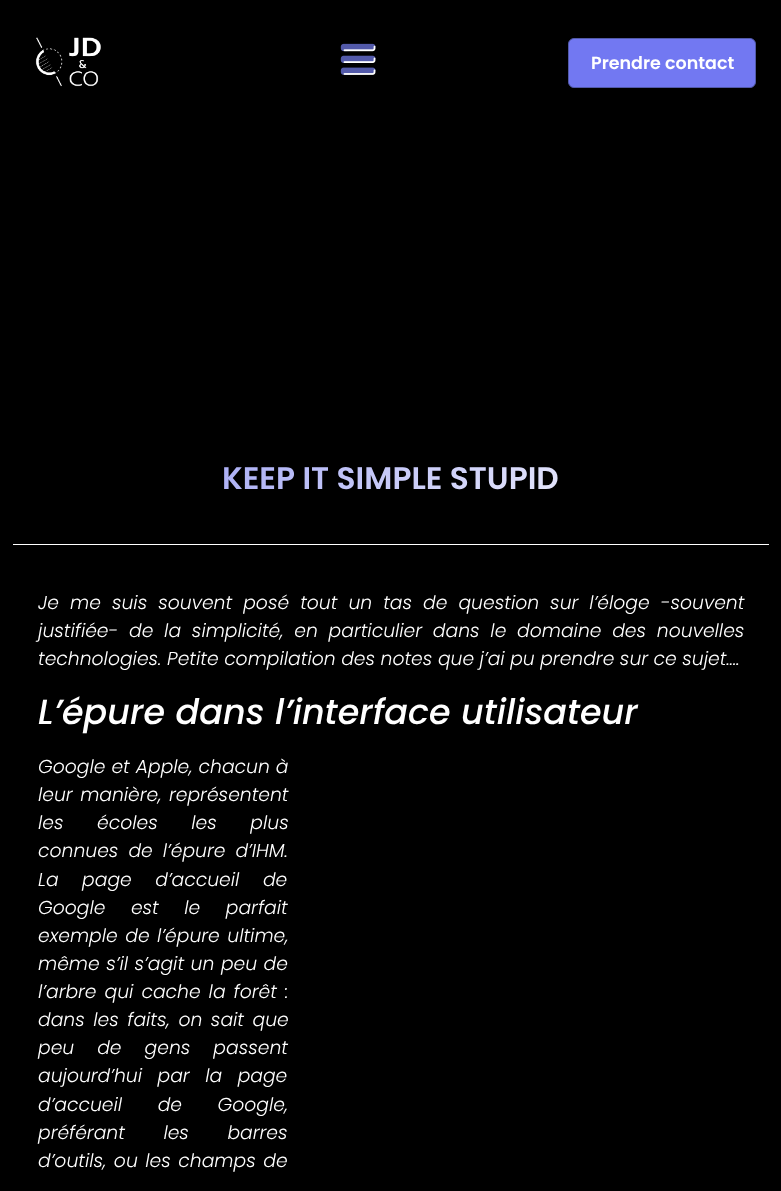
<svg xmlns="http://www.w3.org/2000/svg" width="781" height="1191">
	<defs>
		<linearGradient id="g1" gradientUnits="userSpaceOnUse" x1="240" y1="298" x2="542" y2="658"><stop offset="0" stop-color="#9095F2" /><stop offset="1" stop-color="#FFFFFF" /></linearGradient>
	</defs>
	<rect width="100%" height="100%" fill="#000000" />
	<image x="35" y="37" width="66" height="50" href="assets/img1.png" />
	<image x="340" y="43" width="36" height="32" href="assets/img2.png" />
	<rect x="568.5" y="38.5" width="187" height="49" rx="5.5" fill="#7278F2" stroke="#525AAA" />
	<text x="591" y="69" font-family="Poppins" font-size="17.5" font-weight="600" fill="#FFFFFF">Prendre contact</text>
	<text x="222" y="489" font-family="Poppins" font-size="31.25" font-weight="600" fill="url(#g1)">KEEP IT SIMPLE STUPID</text>
	<rect x="13" y="544" width="756" height="1" fill="#FFFFFF" />
	<g font-family="Poppins" font-size="18.75" font-weight="300" font-style="italic" fill="#FFFFFF">
		<text x="38" y="609" word-spacing="5.5">Je me suis souvent posé tout un tas de question sur l’éloge -souvent</text>
		<text x="38" y="637" word-spacing="5.25">justifiée- de la simplicité, en particulier dans le domaine des nouvelles</text>
		<text x="38" y="665">technologies. Petite compilation des notes que j’ai pu prendre sur ce sujet….</text>
	</g>
	<text x="38" y="724" font-family="Poppins" font-size="35" font-weight="500" font-style="italic" fill="#FFFFFF">L’épure dans l’interface utilisateur</text>
	<g font-family="Poppins" font-size="18.75" font-weight="300" font-style="italic" fill="#FFFFFF">
		<text x="38" y="773" word-spacing="0.5">Google et Apple, chacun à</text>
		<text x="38" y="801" word-spacing="2">leur manière, représentent</text>
		<text x="38" y="829" word-spacing="28">les écoles les plus</text>
		<text x="38" y="857" word-spacing="4.5">connues de l’épure d’IHM.</text>
		<text x="38" y="886" word-spacing="18">La page d’accueil de</text>
		<text x="38" y="914" word-spacing="20">Google est le parfait</text>
		<text x="38" y="942" word-spacing="2">exemple de l’épure ultime,</text>
		<text x="38" y="970" word-spacing="1">même s’il s’agit un peu de</text>
		<text x="38" y="998" word-spacing="2.5">l’arbre qui cache la forêt :</text>
		<text x="38" y="1026" word-spacing="3">dans les faits, on sait que</text>
		<text x="38" y="1054" word-spacing="17.5">peu de gens passent</text>
		<text x="38" y="1082" word-spacing="10">aujourd’hui par la page</text>
		<text x="38" y="1111" word-spacing="30">d’accueil de Google,</text>
		<text x="38" y="1139" word-spacing="33">préférant les barres</text>
		<text x="38" y="1167" word-spacing="2">d’outils, ou les champs de</text>
	</g>
</svg>
